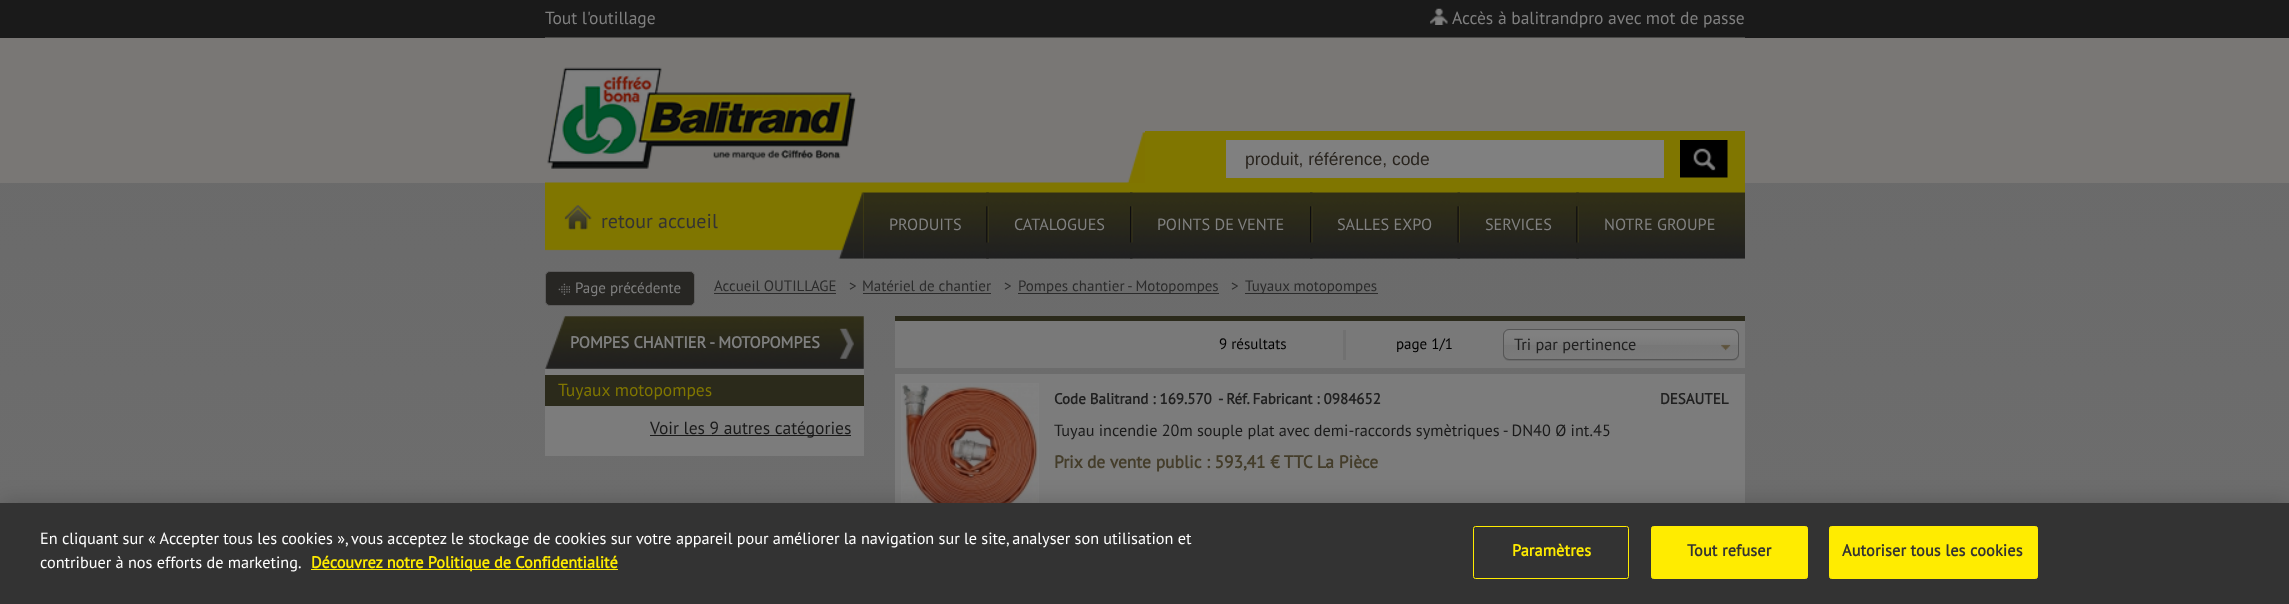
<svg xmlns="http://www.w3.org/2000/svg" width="2289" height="604">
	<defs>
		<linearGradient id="g1" gradientUnits="userSpaceOnUse" x1="1145" y1="0" x2="1145" y2="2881"><stop offset="0" stop-color="#696969" /><stop offset="1" stop-color="#808080" /></linearGradient>
		<linearGradient id="g2" gradientUnits="userSpaceOnUse" x1="1621" y1="330" x2="1621" y2="359"><stop offset="0.2" stop-color="#808080" /><stop offset="0.5" stop-color="#7B7B7B" /><stop offset="0.52" stop-color="#777777" /><stop offset="1" stop-color="#7A7A7A" /></linearGradient>
	</defs>
	<rect width="100%" height="100%" fill="#FFFFFF" />
	<rect x="0" y="183" width="2289" height="320" fill="url(#g1)" />
	<rect x="0" y="0" width="2289" height="38" fill="#1A1A1A" />
	<text x="545" y="24" font-family="PT Sans" font-size="17.5" fill="#808080">Tout l'outillage</text>
	<image x="1430" y="8" width="18" height="17" href="assets/img1.png" />
	<text x="1452" y="24" font-family="PT Sans" font-size="17.5" fill="#808080">Accès à balitrandpro avec mot de passe</text>
	<rect x="0" y="38" width="2289" height="145" fill="#797775" />
	<rect x="545" y="37" width="1200" height="1" fill="#494947" />
	<image x="547" y="67" width="309" height="102" href="assets/img2.png" />
	<image x="545" y="182" width="1200" height="69" href="assets/img5.png" />
	<image x="1127" y="132" width="18" height="51" href="assets/img3.png" />
	<rect x="1145" y="131" width="600" height="52" fill="#807600" />
	<rect x="1226" y="140" width="438" height="38" fill="#808080" />
	<text x="1245" y="165" font-family="Liberation Sans" font-size="17.5" fill="#29241E">produit, référence, code</text>
	<image x="1680" y="140" width="48" height="38" href="assets/img4.png" />
	<image x="564" y="205" width="28" height="25" href="assets/img6.png" />
	<text x="601" y="228" font-family="PT Sans" font-size="20" fill="#333333">retour accueil</text>
	<image x="838" y="192" width="26" height="67" href="assets/img7.png" />
	<image x="863" y="192" width="882" height="67" href="assets/img8.png" />
	<text x="889" y="230" font-family="PT Sans" font-size="16.25" fill="#808080">PRODUITS</text>
	<image x="986" y="192" width="3" height="67" href="assets/img9.png" />
	<text x="1014" y="230" font-family="PT Sans" font-size="16.25" fill="#808080">CATALOGUES</text>
	<image x="1130" y="192" width="3" height="67" href="assets/img10.png" />
	<text x="1157" y="230" font-family="PT Sans" font-size="16.25" fill="#808080">POINTS DE VENTE</text>
	<image x="1310" y="192" width="3" height="67" href="assets/img11.png" />
	<text x="1337" y="230" font-family="PT Sans" font-size="16.25" fill="#808080">SALLES EXPO</text>
	<image x="1457" y="192" width="3" height="67" href="assets/img12.png" />
	<text x="1485" y="230" font-family="PT Sans" font-size="16.25" fill="#808080">SERVICES</text>
	<image x="1576" y="192" width="3" height="67" href="assets/img13.png" />
	<text x="1604" y="230" font-family="PT Sans" font-size="16.25" fill="#808080">NOTRE GROUPE</text>
	<rect x="545.5" y="271.5" width="149" height="34" rx="4.5" fill="#272623" stroke="#5E5D5D" />
	<image x="558" y="283" width="12" height="12" href="assets/img14.png" />
	<text x="575" y="293" font-family="PT Sans" font-size="15" fill="#808080">Page précédente</text>
	<text x="714" y="291" font-family="PT Sans" font-size="15" fill="#2B2B2B">Accueil OUTILLAGE</text>
	<rect x="714" y="293" width="122" height="1" fill="#2B2B2B" />
	<g font-family="PT Sans" font-size="15" fill="#2B2B2B">
		<text x="849" y="291">&gt;</text>
		<text x="862" y="291">Matériel de chantier</text>
	</g>
	<rect x="863" y="293" width="128" height="1" fill="#2B2B2B" />
	<text x="1004" y="291" font-family="PT Sans" font-size="15" fill="#2B2B2B">&gt;</text>
	<rect x="1018" y="293" width="201" height="1" fill="#2B2B2B" />
	<g font-family="PT Sans" font-size="15" fill="#2B2B2B">
		<text x="1018" y="291">Pompes chantier - Motopompes</text>
		<text x="1231" y="291">&gt;</text>
	</g>
	<rect x="1245" y="293" width="133" height="1" fill="#2B2B2B" />
	<text x="1245" y="291" font-family="PT Sans" font-size="15" fill="#2B2B2B">Tuyaux motopompes</text>
	<image x="545" y="316" width="319" height="53" href="assets/img15.png" />
	<text x="570" y="348" font-family="PT Sans" font-size="16.25" font-weight="700" fill="#808080">POMPES CHANTIER - MOTOPOMPES</text>
	<rect x="545" y="369" width="319" height="87" fill="#7C7C7C" />
	<rect x="545" y="375" width="319" height="31" fill="#2B2A1B" />
	<text x="558" y="396" font-family="PT Sans" font-size="17.5" fill="#807600">Tuyaux motopompes</text>
	<rect x="650" y="435" width="201" height="1" fill="#1A1A1A" />
	<text x="650" y="434" font-family="PT Sans" font-size="17.5" fill="#1A1A1A">Voir les 9 autres catégories</text>
	<rect x="895" y="321" width="850" height="47" fill="#797979" />
	<rect x="895" y="316" width="850" height="5" fill="#2B2A1B" />
	<text x="1219" y="349" font-family="PT Sans" font-size="15" fill="#000000">9 résultats</text>
	<rect x="1343" y="330" width="3" height="30" fill="#717171" />
	<text x="1396" y="349" font-family="PT Sans" font-size="15" fill="#000000">page 1/1</text>
	<rect x="1503" y="330" width="236" height="31" rx="6" fill="#000000" fill-opacity="0.1" filter="blur(0.5px)" />
	<rect x="1504" y="330" width="234" height="29" rx="5" fill="url(#g2)" />
	<rect x="1503.5" y="329.5" width="235" height="30" rx="5.5" fill="none" stroke="#555555" />
	<text x="1514" y="350" font-family="PT Sans" font-size="16.25" fill="#202020">Tri par pertinence</text>
	<image x="1721" y="344" width="10" height="7" href="assets/img16.png" />
	<rect x="895" y="374" width="850" height="129" fill="#7C7C7C" />
	<rect x="901" y="383" width="138" height="120" fill="#808080" />
	<image x="902" y="384" width="136" height="119" href="assets/img17.png" />
	<g font-family="PT Sans" font-size="15" font-weight="700" fill="#202020">
		<text x="1054" y="404">Code Balitrand : 169.570</text>
		<text x="1218" y="404">- Réf. Fabricant : 0984652</text>
		<text x="1660" y="404">DESAUTEL</text>
	</g>
	<text x="1054" y="436" font-family="PT Sans" font-size="16.25" fill="#1A1A1A">Tuyau incendie 20m souple plat avec demi-raccords symètriques - DN40 Ø int.45</text>
	<text x="1054" y="468" font-family="PT Sans" font-size="17.5" font-weight="700" fill="#443D2A">Prix de vente public : 593,41 € TTC La Pièce</text>
	<rect x="0" y="503" width="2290" height="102" fill="#000000" fill-opacity="0.2" filter="blur(11px)" />
	<rect x="0" y="503" width="2289" height="101" fill="#333333" />
	<g font-family="PT Sans" font-size="16.25" fill="#FFFFFF">
		<text x="40" y="544">En cliquant sur « Accepter tous les cookies », vous acceptez le stockage de cookies sur votre appareil pour améliorer la navigation sur le site, analyser son utilisation et</text>
		<text x="40" y="568">contribuer à nos efforts de marketing.</text>
	</g>
	<rect x="311" y="569" width="307" height="1" fill="#FFEC00" />
	<text x="311" y="568" font-family="PT Sans" font-size="16.25" font-weight="700" fill="#FFEC00">Découvrez notre Politique de Confidentialité</text>
	<rect x="1473.5" y="526.5" width="155" height="52" rx="2" fill="none" stroke="#FFEC00" />
	<text x="1512" y="556" font-family="PT Sans" font-size="16.25" font-weight="700" letter-spacing="0.15" fill="#FFEC00">Paramètres</text>
	<rect x="1651.5" y="526.5" width="156" height="52" rx="2" fill="#FFEC00" stroke="#FFEC00" />
	<text x="1687" y="556" font-family="PT Sans" font-size="16.25" font-weight="700" letter-spacing="0.15" fill="#333333">Tout refuser</text>
	<rect x="1829.5" y="526.5" width="208" height="52" rx="2" fill="#FFEC00" stroke="#FFEC00" />
	<text x="1842" y="556" font-family="PT Sans" font-size="16.25" font-weight="700" letter-spacing="0.15" fill="#333333">Autoriser tous les cookies</text>
</svg>
